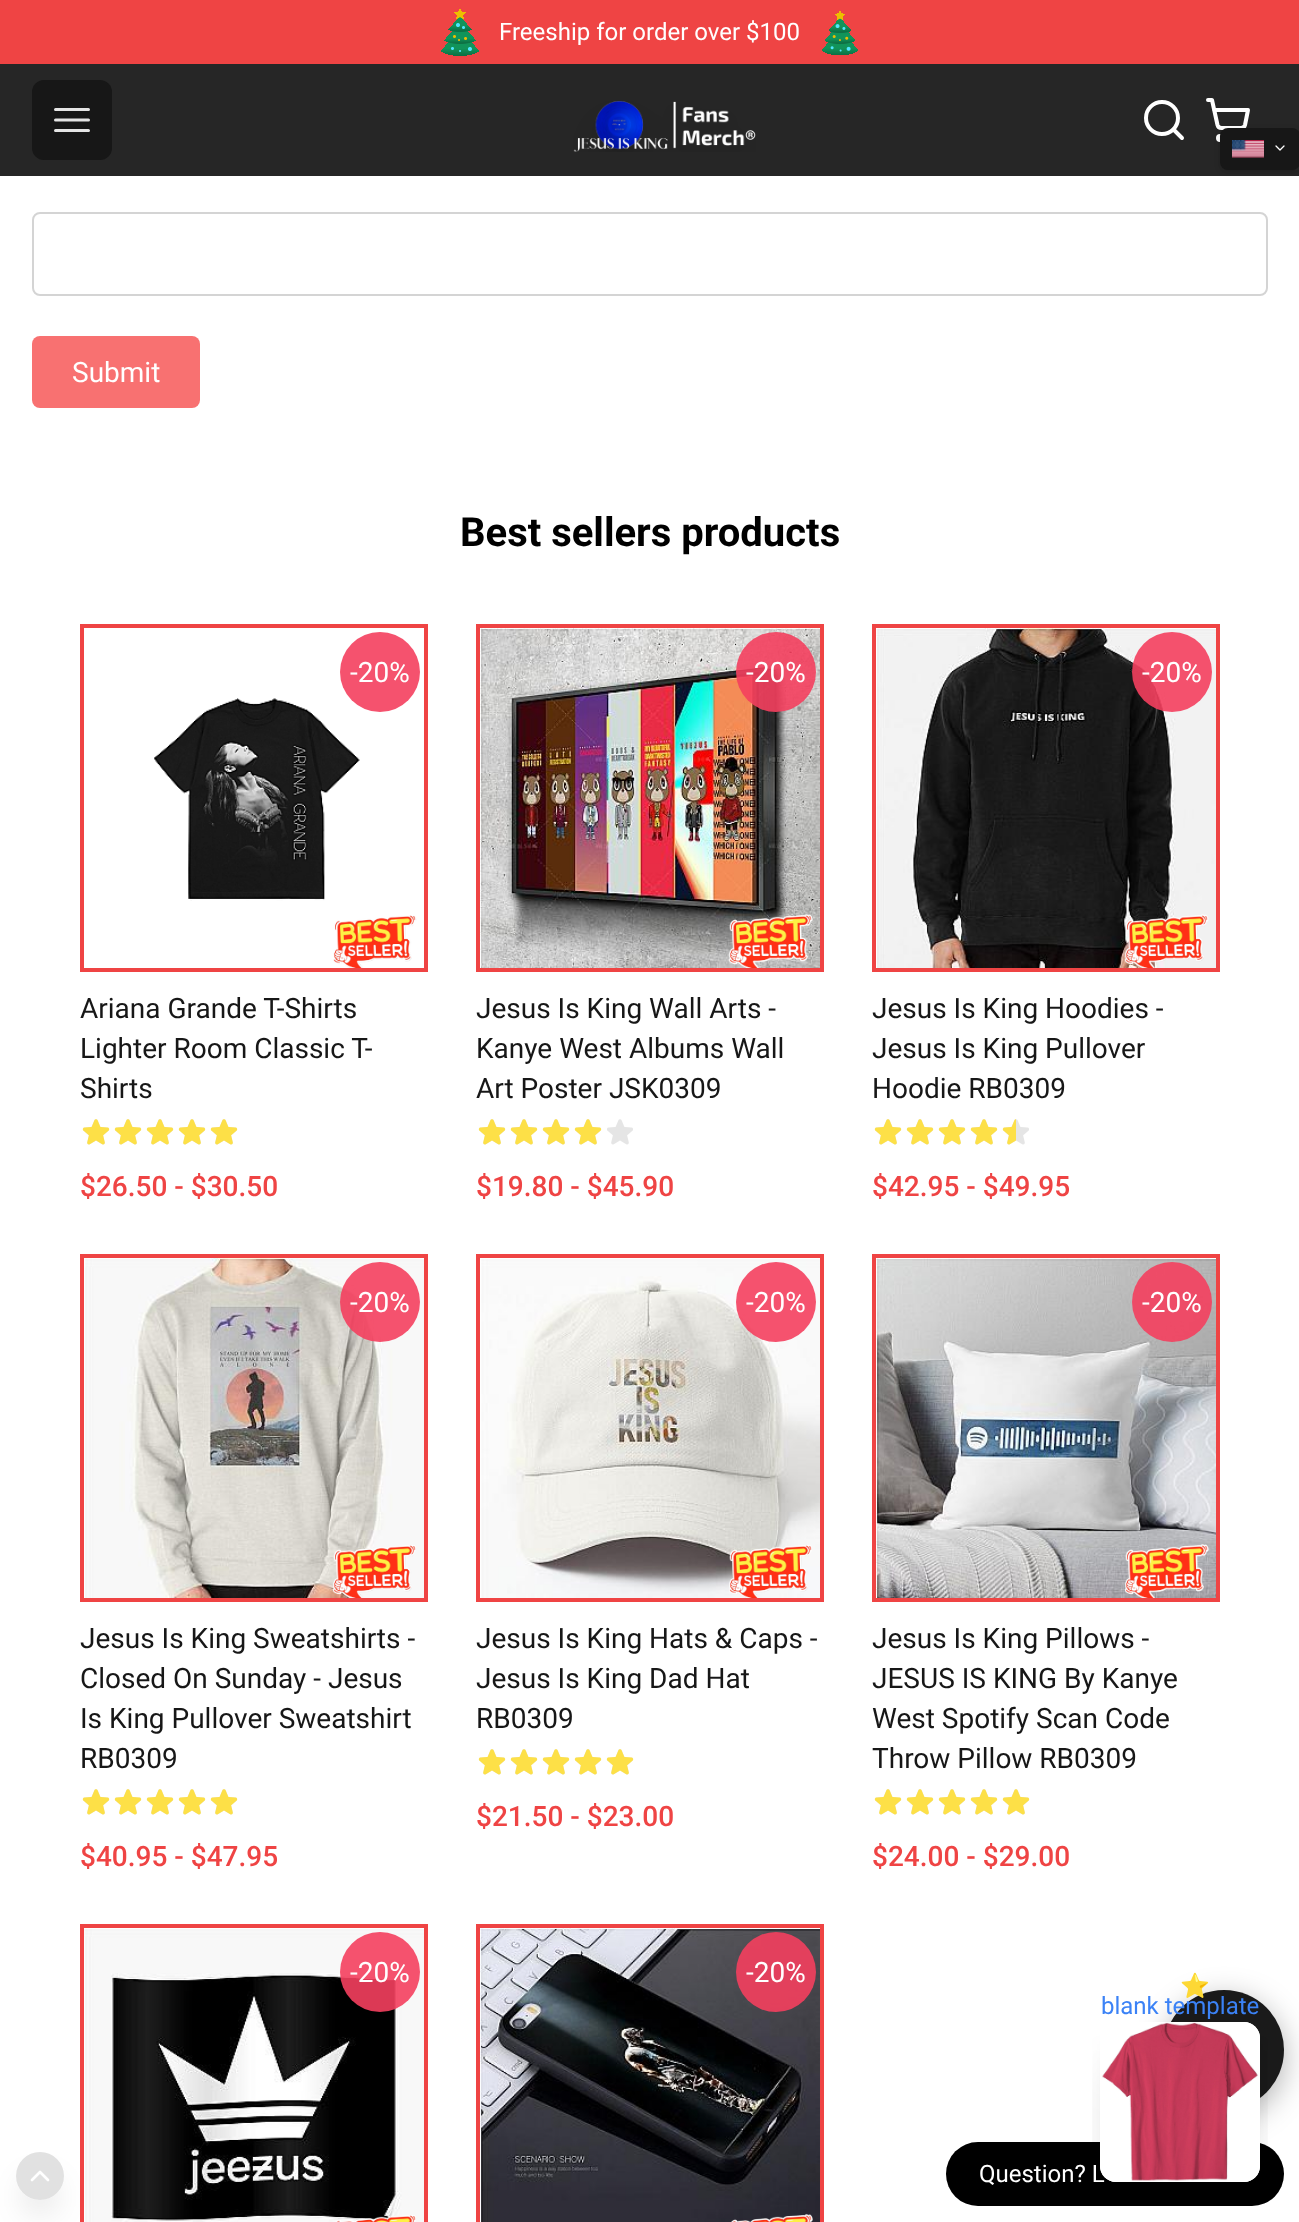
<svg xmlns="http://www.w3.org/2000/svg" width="1299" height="2222">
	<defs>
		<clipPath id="clip1"><rect x="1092" y="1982" width="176" height="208" /></clipPath>
		<clipPath id="clip2"><path d="M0 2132H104V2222H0ZM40 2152C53.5 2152 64 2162.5 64 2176C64 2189.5 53.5 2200 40 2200C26.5 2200 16 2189.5 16 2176C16 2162.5 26.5 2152 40 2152Z" clip-rule="evenodd" /></clipPath>
	</defs>
	<rect width="100%" height="100%" fill="#FFFFFF" />
	<rect x="0" y="0" width="1299" height="64" fill="#EF4444" />
	<image x="441" y="9" width="38" height="47" href="assets/img1.png" />
	<text x="499" y="40" font-family="Roboto" font-size="24" fill="#FFFFFF">Freeship for order over $100</text>
	<image x="822" y="11" width="36" height="44" href="assets/img2.png" />
	<rect x="0" y="64" width="1299" height="112" fill="#262626" />
	<rect x="32" y="80" width="80" height="80" rx="12" fill="#171717" />
	<path d="M55.5 109.5H88.5M55.5 120H88.5M55.5 130.5H88.5" fill="none" stroke="#E5E5E5" stroke-width="3" stroke-linecap="round" stroke-linejoin="round" />
	<image x="573" y="101" width="183" height="51" href="assets/img3.png" />
	<path d="M1182 138L1173.5 129.5" fill="none" stroke="#FFFFFF" stroke-width="4" stroke-linecap="round" stroke-linejoin="round" />
	<circle cx="1162" cy="118" r="16" fill="none" stroke="#FFFFFF" stroke-width="4" />
	<circle cx="1220" cy="138" r="2" fill="none" stroke="#FFFFFF" stroke-width="4" />
	<path d="M1208 100H1212L1217.5 125C1218 127 1219.5 128 1221.5 128H1241C1243 128 1244.5 127 1245 125L1248 110H1214" fill="none" stroke="#FFFFFF" stroke-width="4" stroke-linecap="round" stroke-linejoin="round" />
	<rect x="1222" y="132" width="76" height="38" rx="6" fill="#000000" fill-opacity="0.1" filter="blur(2px)" />
	<rect x="1220" y="130" width="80" height="42" rx="8" fill="#000000" fill-opacity="0.1" filter="blur(3px)" />
	<rect x="1220" y="128" width="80" height="42" rx="8" fill="#171717" />
	<image x="1232" y="140" width="32" height="18" href="assets/img4.png" />
	<path d="M1276 146L1280 150L1284 146" fill="none" stroke="#FFFFFF" stroke-width="1.3" stroke-linecap="round" stroke-linejoin="round" />
	<rect x="33" y="213" width="1234" height="82" rx="7" fill="none" stroke="#D4D4D4" stroke-width="2" />
	<rect x="32" y="336" width="168" height="72" rx="8" fill="#F87171" />
	<text x="72" y="382" font-family="Roboto" font-size="28" fill="#FFFFFF">Submit</text>
	<text x="460" y="546" font-family="Roboto" font-size="40" font-weight="700" fill="#000000">Best sellers products</text>
	<rect x="82" y="626" width="344" height="344" fill="none" stroke="#EF4444" stroke-width="4" />
	<image x="154" y="698" width="206" height="203" href="assets/img5.png" />
	<image x="333" y="915" width="84" height="53" href="assets/img6.png" />
	<circle cx="380" cy="672" r="40" fill="#F5526E" />
	<text x="350" y="682" font-family="Roboto" font-size="28" fill="#FFFFFF">-20%</text>
	<g font-family="Roboto" font-size="28" fill="#171717">
		<text x="80" y="1018">Ariana Grande T-Shirts</text>
		<text x="80" y="1058">Lighter Room Classic T-</text>
		<text x="80" y="1098">Shirts</text>
	</g>
	<image x="83" y="1119" width="26" height="26" href="assets/img8.png" />
	<image x="82" y="1119" width="28" height="26" href="assets/img7.png" />
	<image x="115" y="1119" width="26" height="26" href="assets/img8.png" />
	<image x="114" y="1119" width="28" height="26" href="assets/img7.png" />
	<image x="147" y="1119" width="26" height="26" href="assets/img8.png" />
	<image x="146" y="1119" width="28" height="26" href="assets/img7.png" />
	<image x="179" y="1119" width="26" height="26" href="assets/img8.png" />
	<image x="178" y="1119" width="28" height="26" href="assets/img7.png" />
	<image x="211" y="1119" width="26" height="26" href="assets/img8.png" />
	<image x="210" y="1119" width="28" height="26" href="assets/img7.png" />
	<text x="80" y="1196" font-family="Roboto" font-size="28" font-weight="500" fill="#EF4444">$26.50 - $30.50</text>
	<rect x="478" y="626" width="344" height="344" fill="none" stroke="#EF4444" stroke-width="4" />
	<image x="480" y="628" width="340" height="340" href="assets/img9.png" />
	<image x="728" y="914" width="85" height="54" href="assets/img10.png" />
	<circle cx="776" cy="672" r="40" fill="#F43F5E" fill-opacity="0.9" />
	<text x="746" y="682" font-family="Roboto" font-size="28" fill="#FFFFFF">-20%</text>
	<g font-family="Roboto" font-size="28" fill="#171717">
		<text x="476" y="1018">Jesus Is King Wall Arts -</text>
		<text x="476" y="1058">Kanye West Albums Wall</text>
		<text x="476" y="1098">Art Poster JSK0309</text>
	</g>
	<image x="479" y="1119" width="26" height="26" href="assets/img8.png" />
	<image x="478" y="1119" width="28" height="26" href="assets/img7.png" />
	<image x="511" y="1119" width="26" height="26" href="assets/img8.png" />
	<image x="510" y="1119" width="28" height="26" href="assets/img7.png" />
	<image x="543" y="1119" width="26" height="26" href="assets/img8.png" />
	<image x="542" y="1119" width="28" height="26" href="assets/img7.png" />
	<image x="575" y="1119" width="26" height="26" href="assets/img8.png" />
	<image x="574" y="1119" width="28" height="26" href="assets/img7.png" />
	<image x="607" y="1119" width="26" height="26" href="assets/img8.png" />
	<text x="476" y="1196" font-family="Roboto" font-size="28" font-weight="500" fill="#EF4444">$19.80 - $45.90</text>
	<rect x="874" y="626" width="344" height="344" fill="none" stroke="#EF4444" stroke-width="4" />
	<image x="876" y="628" width="340" height="340" href="assets/img11.png" />
	<image x="1124" y="914" width="85" height="54" href="assets/img12.png" />
	<circle cx="1172" cy="672" r="40" fill="#F43F5E" fill-opacity="0.9" />
	<text x="1142" y="682" font-family="Roboto" font-size="28" fill="#FFFFFF">-20%</text>
	<g font-family="Roboto" font-size="28" fill="#171717">
		<text x="872" y="1018">Jesus Is King Hoodies -</text>
		<text x="872" y="1058">Jesus Is King Pullover</text>
		<text x="872" y="1098">Hoodie RB0309</text>
	</g>
	<image x="875" y="1119" width="26" height="26" href="assets/img8.png" />
	<image x="874" y="1119" width="28" height="26" href="assets/img7.png" />
	<image x="907" y="1119" width="26" height="26" href="assets/img8.png" />
	<image x="906" y="1119" width="28" height="26" href="assets/img7.png" />
	<image x="939" y="1119" width="26" height="26" href="assets/img8.png" />
	<image x="938" y="1119" width="28" height="26" href="assets/img7.png" />
	<image x="971" y="1119" width="26" height="26" href="assets/img8.png" />
	<image x="970" y="1119" width="28" height="26" href="assets/img7.png" />
	<image x="1003" y="1119" width="26" height="26" href="assets/img8.png" />
	<image x="1002" y="1119" width="14" height="26" href="assets/img13.png" />
	<text x="872" y="1196" font-family="Roboto" font-size="28" font-weight="500" fill="#EF4444">$42.95 - $49.95</text>
	<rect x="82" y="1256" width="344" height="344" fill="none" stroke="#EF4444" stroke-width="4" />
	<image x="85" y="1258" width="339" height="340" href="assets/img14.png" />
	<image x="332" y="1545" width="84" height="53" href="assets/img15.png" />
	<circle cx="380" cy="1302" r="40" fill="#F43F5E" fill-opacity="0.9" />
	<text x="350" y="1312" font-family="Roboto" font-size="28" fill="#FFFFFF">-20%</text>
	<g font-family="Roboto" font-size="28" fill="#171717">
		<text x="80" y="1648">Jesus Is King Sweatshirts -</text>
		<text x="80" y="1688">Closed On Sunday - Jesus</text>
		<text x="80" y="1728">Is King Pullover Sweatshirt</text>
		<text x="80" y="1768">RB0309</text>
	</g>
	<image x="83" y="1789" width="26" height="26" href="assets/img8.png" />
	<image x="82" y="1789" width="28" height="26" href="assets/img7.png" />
	<image x="115" y="1789" width="26" height="26" href="assets/img8.png" />
	<image x="114" y="1789" width="28" height="26" href="assets/img7.png" />
	<image x="147" y="1789" width="26" height="26" href="assets/img8.png" />
	<image x="146" y="1789" width="28" height="26" href="assets/img7.png" />
	<image x="179" y="1789" width="26" height="26" href="assets/img8.png" />
	<image x="178" y="1789" width="28" height="26" href="assets/img7.png" />
	<image x="211" y="1789" width="26" height="26" href="assets/img8.png" />
	<image x="210" y="1789" width="28" height="26" href="assets/img7.png" />
	<text x="80" y="1866" font-family="Roboto" font-size="28" font-weight="500" fill="#EF4444">$40.95 - $47.95</text>
	<rect x="478" y="1256" width="344" height="344" fill="none" stroke="#EF4444" stroke-width="4" />
	<image x="481" y="1259" width="339" height="339" href="assets/img16.png" />
	<image x="729" y="1545" width="83" height="53" href="assets/img17.png" />
	<circle cx="776" cy="1302" r="40" fill="#F43F5E" fill-opacity="0.9" />
	<text x="746" y="1312" font-family="Roboto" font-size="28" fill="#FFFFFF">-20%</text>
	<g font-family="Roboto" font-size="28" fill="#171717">
		<text x="476" y="1648">Jesus Is King Hats &amp; Caps -</text>
		<text x="476" y="1688">Jesus Is King Dad Hat</text>
		<text x="476" y="1728">RB0309</text>
	</g>
	<image x="479" y="1749" width="26" height="26" href="assets/img8.png" />
	<image x="478" y="1749" width="28" height="26" href="assets/img7.png" />
	<image x="511" y="1749" width="26" height="26" href="assets/img8.png" />
	<image x="510" y="1749" width="28" height="26" href="assets/img7.png" />
	<image x="543" y="1749" width="26" height="26" href="assets/img8.png" />
	<image x="542" y="1749" width="28" height="26" href="assets/img7.png" />
	<image x="575" y="1749" width="26" height="26" href="assets/img8.png" />
	<image x="574" y="1749" width="28" height="26" href="assets/img7.png" />
	<image x="607" y="1749" width="26" height="26" href="assets/img8.png" />
	<image x="606" y="1749" width="28" height="26" href="assets/img7.png" />
	<text x="476" y="1826" font-family="Roboto" font-size="28" font-weight="500" fill="#EF4444">$21.50 - $23.00</text>
	<rect x="874" y="1256" width="344" height="344" fill="none" stroke="#EF4444" stroke-width="4" />
	<image x="876" y="1258" width="340" height="340" href="assets/img18.png" />
	<image x="1124" y="1544" width="85" height="54" href="assets/img19.png" />
	<circle cx="1172" cy="1302" r="40" fill="#F43F5E" fill-opacity="0.9" />
	<text x="1142" y="1312" font-family="Roboto" font-size="28" fill="#FFFFFF">-20%</text>
	<g font-family="Roboto" font-size="28" fill="#171717">
		<text x="872" y="1648">Jesus Is King Pillows -</text>
		<text x="872" y="1688">JESUS IS KING By Kanye</text>
		<text x="872" y="1728">West Spotify Scan Code</text>
		<text x="872" y="1768">Throw Pillow RB0309</text>
	</g>
	<image x="875" y="1789" width="26" height="26" href="assets/img8.png" />
	<image x="874" y="1789" width="28" height="26" href="assets/img7.png" />
	<image x="907" y="1789" width="26" height="26" href="assets/img8.png" />
	<image x="906" y="1789" width="28" height="26" href="assets/img7.png" />
	<image x="939" y="1789" width="26" height="26" href="assets/img8.png" />
	<image x="938" y="1789" width="28" height="26" href="assets/img7.png" />
	<image x="971" y="1789" width="26" height="26" href="assets/img8.png" />
	<image x="970" y="1789" width="28" height="26" href="assets/img7.png" />
	<image x="1003" y="1789" width="26" height="26" href="assets/img8.png" />
	<image x="1002" y="1789" width="28" height="26" href="assets/img7.png" />
	<text x="872" y="1866" font-family="Roboto" font-size="28" font-weight="500" fill="#EF4444">$24.00 - $29.00</text>
	<rect x="82" y="1926" width="344" height="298" fill="none" stroke="#EF4444" stroke-width="4" />
	<image x="84" y="1929" width="340" height="293" href="assets/img20.png" />
	<image x="337" y="2215" width="79" height="7" href="assets/img21.png" />
	<circle cx="380" cy="1972" r="40" fill="#F43F5E" fill-opacity="0.9" />
	<text x="350" y="1982" font-family="Roboto" font-size="28" fill="#FFFFFF">-20%</text>
	<rect x="478" y="1926" width="344" height="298" fill="none" stroke="#EF4444" stroke-width="4" />
	<image x="480" y="1928" width="340" height="294" href="assets/img22.png" />
	<image x="731" y="2213" width="82" height="9" href="assets/img23.png" />
	<circle cx="776" cy="1972" r="40" fill="#F43F5E" fill-opacity="0.9" />
	<text x="746" y="1982" font-family="Roboto" font-size="28" fill="#FFFFFF">-20%</text>
	<rect x="946" y="2142" width="338" height="64" rx="32" fill="#000000" />
	<rect x="1164" y="1998" width="120" height="120" rx="60" fill="#000000" fill-opacity="0.3" filter="blur(15px)" />
	<circle cx="1224" cy="2050" r="60" fill="#1A1A1A" />
	<g clip-path="url(#clip1)">
		<rect x="1112" y="2050" width="136" height="136" rx="4" fill="#000000" fill-opacity="0.1" filter="blur(10px)" />
		<rect x="1110" y="2072" width="140" height="140" rx="6" fill="#000000" fill-opacity="0.1" filter="blur(25px)" />
	</g>
	<rect x="1100" y="2022" width="160" height="160" rx="16" fill="#FFFFFF" />
	<text x="979" y="2182" font-family="Roboto" font-size="24" fill="#FFFFFF">Question? L</text>
	<image x="1100" y="2022" width="160" height="160" href="assets/img24.png" />
	<text x="1101" y="2014" font-family="Roboto" font-size="24" fill="#3B82F6">blank template</text>
	<text x="1180" y="1994" font-family="Noto Color Emoji" font-size="24" font-weight="700" fill="#FFD700">⭐</text>
	<g clip-path="url(#clip2)">
		<rect x="22" y="2178" width="36" height="36" rx="18" fill="#000000" fill-opacity="0.1" filter="blur(15px)" />
	</g>
	<circle cx="40" cy="2176" r="24" fill="#D4D4D4" fill-opacity="0.7" />
	<path d="M48 2180L40 2172L32 2180" fill="none" stroke="#FFFFFF" stroke-width="2.7" stroke-linecap="round" stroke-linejoin="round" />
</svg>
